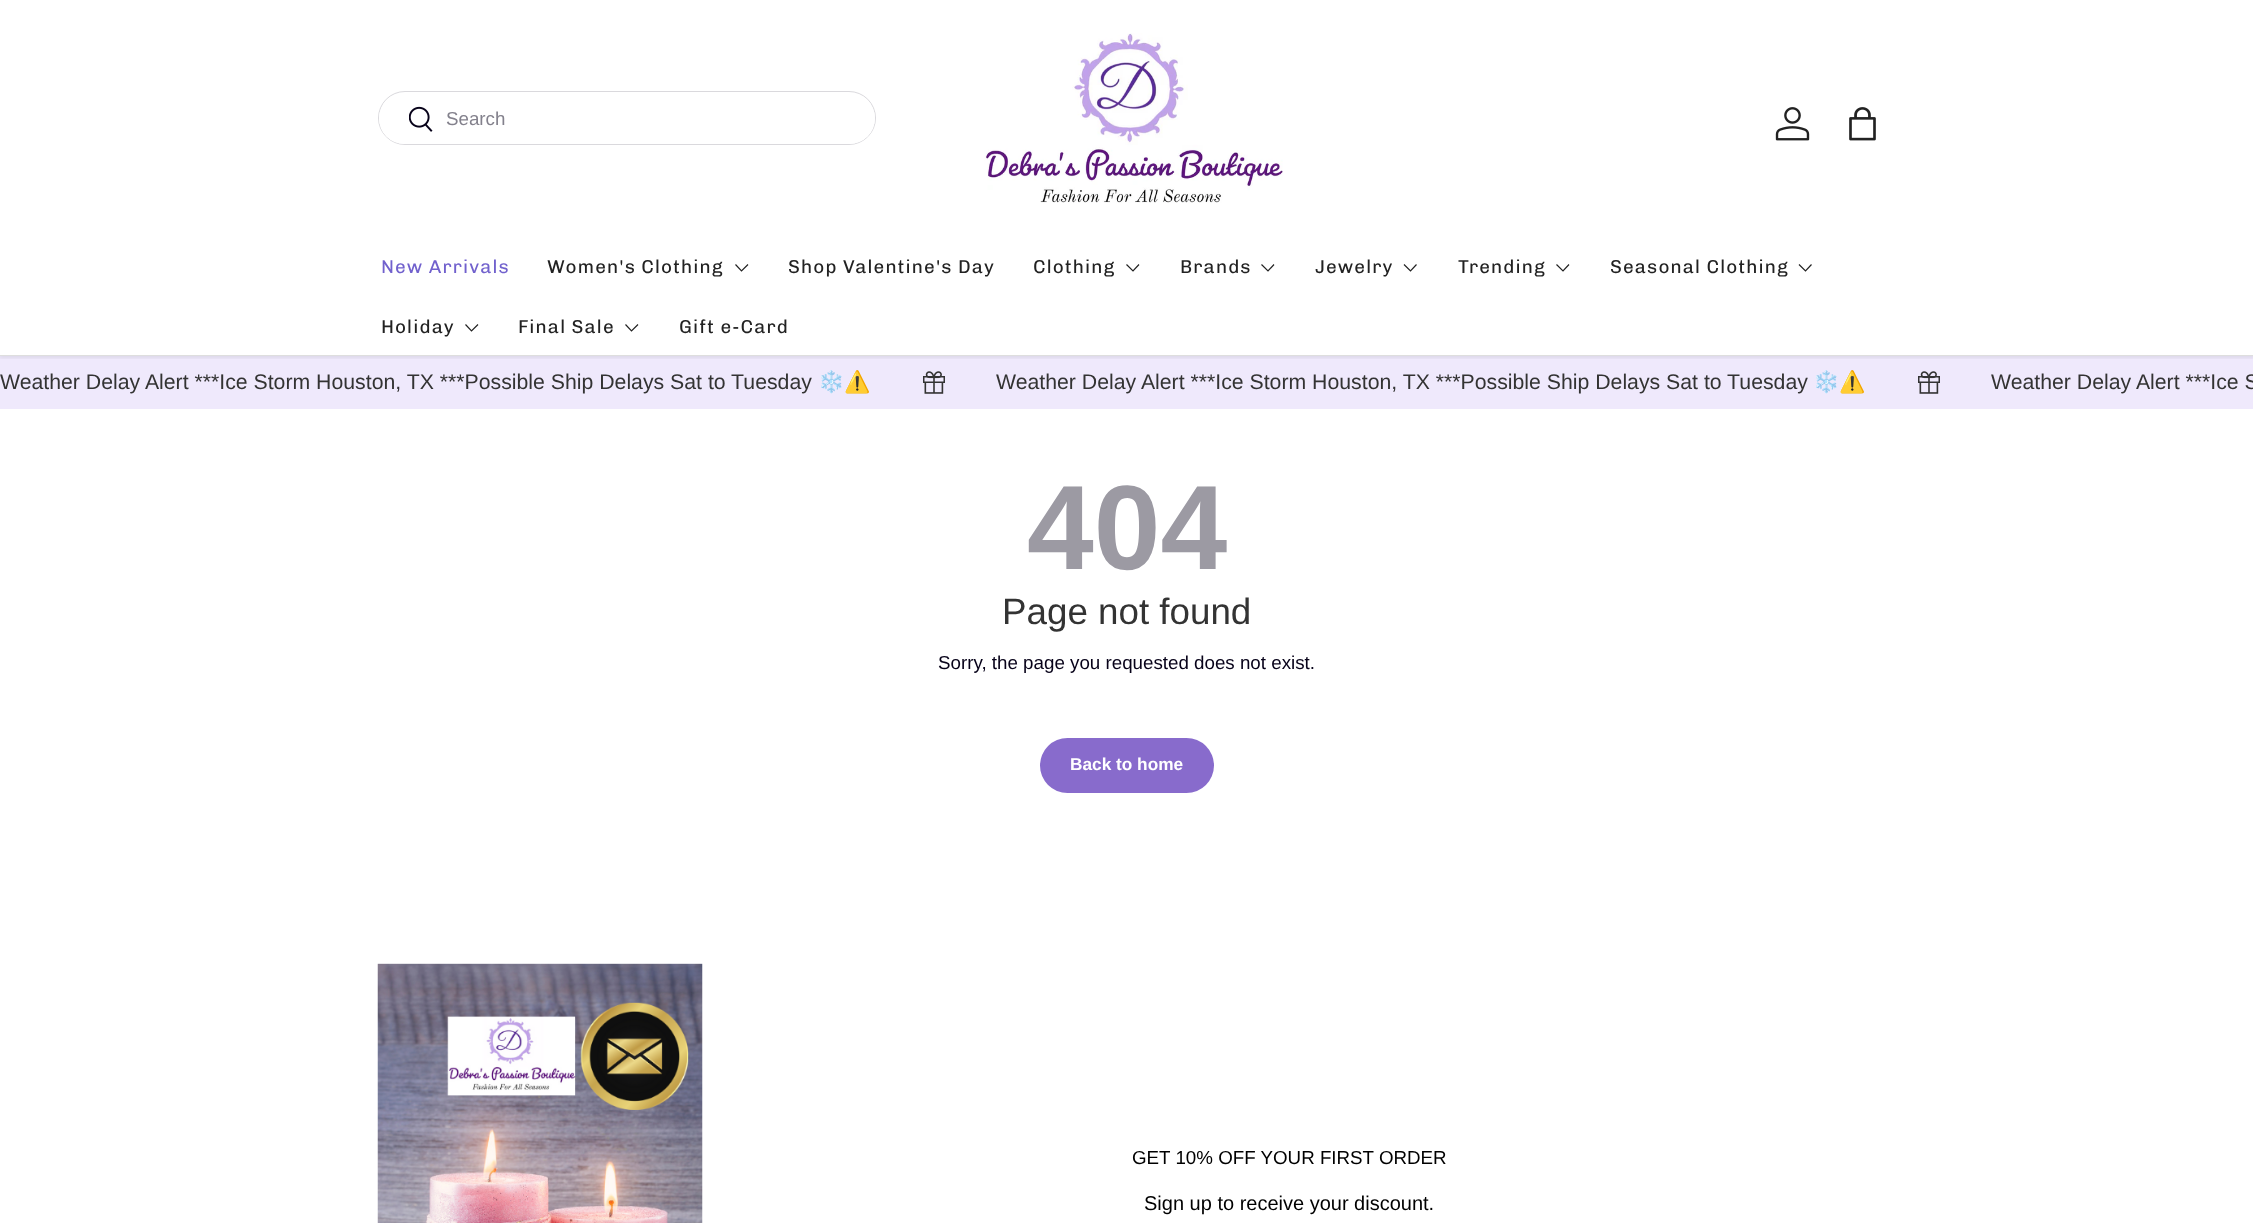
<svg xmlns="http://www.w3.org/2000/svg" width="2253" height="1223">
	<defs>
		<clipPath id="clip1"><rect x="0" y="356" width="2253" height="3" /></clipPath>
		<linearGradient id="g1" gradientUnits="userSpaceOnUse" x1="701" y1="702" x2="1205" y2="828"><stop offset="0.6" stop-color="#A38CD8" /><stop offset="0.6" stop-color="#886BCC" /><stop offset="1" stop-color="#886BCC" /></linearGradient>
	</defs>
	<rect width="100%" height="100%" fill="#FFFFFF" />
	<rect x="0" y="356" width="2253" height="53" fill="#EFE9FC" />
	<g clip-path="url(#clip1)">
		<rect x="-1" y="-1" width="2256" height="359" fill="#000000" fill-opacity="0.08" filter="blur(2px)" />
	</g>
	<rect x="378.5" y="91.5" width="497" height="53" rx="26.5" fill="none" stroke="#DAD9DD" />
	<rect x="379" y="93" width="496" height="51" rx="25.5" fill="#FFFFFF" />
	<image x="409" y="106" width="24" height="26" href="assets/img1.png" />
	<text x="446" y="125" font-family="Liberation Sans" font-size="18.75" fill="#83818C">Search</text>
	<image x="984" y="33" width="299" height="170" href="assets/img2.png" />
	<image x="1775" y="107" width="35" height="34" href="assets/img3.png" />
	<image x="1849" y="107" width="27" height="34" href="assets/img4.png" />
	<text x="381" y="273" font-family="Chivo" font-size="18.75" letter-spacing="1.1" fill="#7161CD">New Arrivals</text>
	<text x="547" y="273" font-family="Chivo" font-size="18.75" letter-spacing="1.1" fill="#222222">Women's Clothing</text>
	<path d="M748 264.5L741.5 271L735.5 264.5" fill="none" stroke="#222222" stroke-width="1.2" />
	<g font-family="Chivo" font-size="18.75" letter-spacing="1.1" fill="#222222">
		<text x="788" y="273">Shop Valentine's Day</text>
		<text x="1033" y="273">Clothing</text>
	</g>
	<path d="M1139 264.5L1133 271L1126.5 264.5" fill="none" stroke="#222222" stroke-width="1.2" />
	<text x="1180" y="273" font-family="Chivo" font-size="18.75" letter-spacing="1.1" fill="#222222">Brands</text>
	<path d="M1274 264.5L1268 271L1261.5 264.5" fill="none" stroke="#222222" stroke-width="1.2" />
	<text x="1315" y="273" font-family="Chivo" font-size="18.75" letter-spacing="1.1" fill="#222222">Jewelry</text>
	<path d="M1416.5 264.5L1410.5 271L1404 264.5" fill="none" stroke="#222222" stroke-width="1.2" />
	<text x="1458" y="273" font-family="Chivo" font-size="18.75" letter-spacing="1.1" fill="#222222">Trending</text>
	<path d="M1569 264.5L1563 271L1556.5 264.5" fill="none" stroke="#222222" stroke-width="1.2" />
	<text x="1610" y="273" font-family="Chivo" font-size="18.75" letter-spacing="1.1" fill="#222222">Seasonal Clothing</text>
	<path d="M1811.5 264.5L1805.5 271L1799 264.5" fill="none" stroke="#222222" stroke-width="1.2" />
	<text x="381" y="333" font-family="Chivo" font-size="18.75" letter-spacing="1.1" fill="#222222">Holiday</text>
	<path d="M478 324.5L471.5 331L465.5 324.5" fill="none" stroke="#222222" stroke-width="1.2" />
	<text x="518" y="333" font-family="Chivo" font-size="18.75" letter-spacing="1.1" fill="#222222">Final Sale</text>
	<path d="M638 324.5L631.5 331L625.5 324.5" fill="none" stroke="#222222" stroke-width="1.2" />
	<text x="679" y="333" font-family="Chivo" font-size="18.75" letter-spacing="1.1" fill="#222222">Gift e-Card</text>
	<rect x="0" y="355" width="2253" height="1" fill="#DEDEDE" />
	<text x="0" y="389" font-family="Liberation Sans" font-size="21.25" fill="#333333">Weather Delay Alert ***Ice Storm Houston, TX ***Possible Ship Delays Sat to Tuesday</text>
	<text x="818" y="389" font-family="Noto Color Emoji" font-size="21.25" fill="#333333">❄️⚠️</text>
	<image x="923" y="371" width="22" height="23" href="assets/img5.png" />
	<text x="996" y="389" font-family="Liberation Sans" font-size="21.25" fill="#333333">Weather Delay Alert ***Ice Storm Houston, TX ***Possible Ship Delays Sat to Tuesday</text>
	<text x="1813" y="389" font-family="Noto Color Emoji" font-size="21.25" fill="#333333">❄️⚠️</text>
	<image x="1918" y="371" width="22" height="23" href="assets/img5.png" />
	<text x="1991" y="389" font-family="Liberation Sans" font-size="21.25" fill="#333333">Weather Delay Alert ***Ice S</text>
	<text x="1027" y="569" font-family="Liberation Sans" font-size="120" font-weight="700" fill="#9C9AA3">404</text>
	<text x="1002" y="624" font-family="Liberation Sans" font-size="36.75" fill="#333333">Page not found</text>
	<text x="938" y="669" font-family="Liberation Sans" font-size="18.75" fill="#070219">Sorry, the page you requested does not exist.</text>
	<rect x="1040" y="738" width="174" height="55" rx="27.5" fill="url(#g1)" />
	<text x="1070" y="770" font-family="Liberation Sans" font-size="17.25" font-weight="700" fill="#FFFFFF">Back to home</text>
	<image x="377" y="963" width="326" height="260" href="assets/img6.png" />
	<text x="1132" y="1164" font-family="Liberation Sans" font-size="18.75" fill="#000000">GET 10% OFF YOUR FIRST ORDER</text>
	<text x="1144" y="1210" font-family="Liberation Sans" font-size="20" fill="#000000">Sign up to receive your discount.</text>
</svg>
